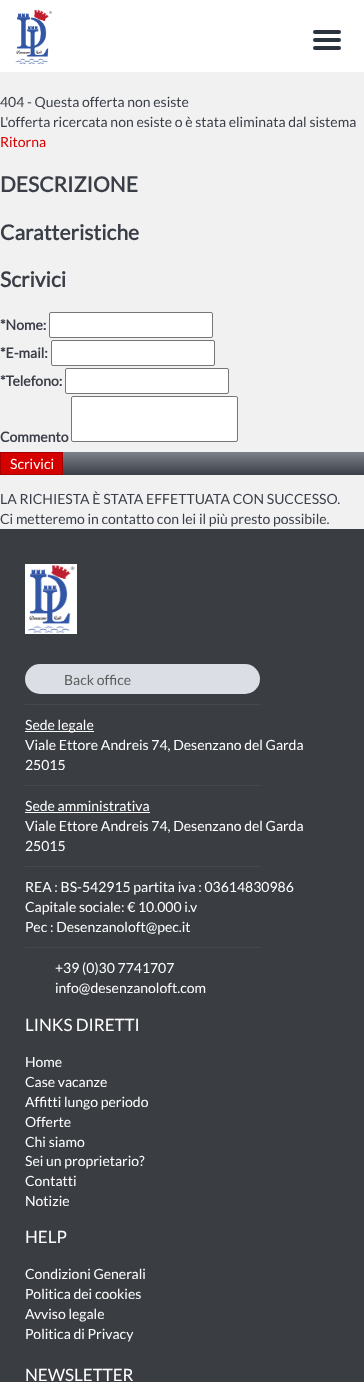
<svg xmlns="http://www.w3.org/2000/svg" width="364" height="1382">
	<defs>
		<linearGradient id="g1" gradientUnits="userSpaceOnUse" x1="182" y1="452" x2="182" y2="475"><stop offset="0" stop-color="#7D828B" /><stop offset="1" stop-color="#393E47" /></linearGradient>
	</defs>
	<rect width="100%" height="100%" fill="#F1F1F1" />
	<rect x="0" y="0" width="364" height="72" fill="#FFFFFF" />
	<image x="15" y="9" width="37" height="56" href="assets/img1.png" />
	<rect x="313" y="30" width="28" height="4" rx="2" fill="#2B333D" />
	<rect x="313" y="38" width="28" height="4" rx="2" fill="#2B333D" />
	<rect x="313" y="46" width="28" height="4" rx="2" fill="#2B333D" />
	<g font-family="Lato" font-size="14" fill="#393E47">
		<text x="0" y="107">404 - Questa offerta non esiste</text>
		<text x="0" y="127">L'offerta ricercata non esiste o è stata eliminata dal sistema</text>
	</g>
	<text x="0" y="147" font-family="Lato" font-size="14" fill="#D50000">Ritorna</text>
	<g font-family="Lato" font-size="21" font-weight="700" fill="#393E47">
		<text x="0" y="192">DESCRIZIONE</text>
		<text x="0" y="240">Caratteristiche</text>
		<text x="0" y="287">Scrivici</text>
	</g>
	<text x="0" y="330" font-family="Lato" font-size="14" font-weight="700" fill="#393E47">*Nome:</text>
	<rect x="49.5" y="312.5" width="163" height="25" rx="1.5" fill="#FFFFFF" stroke="#767676" />
	<text x="0" y="358" font-family="Lato" font-size="14" font-weight="700" fill="#393E47">*E-mail:</text>
	<rect x="51.5" y="340.5" width="163" height="25" rx="1.5" fill="#FFFFFF" stroke="#767676" />
	<text x="0" y="386" font-family="Lato" font-size="14" font-weight="700" fill="#393E47">*Telefono:</text>
	<rect x="65.5" y="368.5" width="163" height="25" rx="1.5" fill="#FFFFFF" stroke="#767676" />
	<text x="0" y="442" font-family="Lato" font-size="14" font-weight="700" fill="#393E47">Commento</text>
	<rect x="71.5" y="396.5" width="166" height="45" rx="1.5" fill="#FFFFFF" stroke="#767676" />
	<rect x="63" y="452" width="301" height="23" fill="url(#g1)" />
	<rect x="0.5" y="452.5" width="62" height="22" fill="#D50000" stroke="#A20000" />
	<text x="10" y="469" font-family="Lato" font-size="14" fill="#FFFFFF">Scrivici</text>
	<g font-family="Lato" font-size="14" fill="#393E47">
		<text x="0" y="504">LA RICHIESTA È STATA EFFETTUATA CON SUCCESSO.</text>
		<text x="0" y="524">Ci metteremo in contatto con lei il più presto possibile.</text>
	</g>
	<rect x="0" y="529" width="364" height="853" fill="#3A3D42" />
	<image x="25" y="564" width="52" height="70" href="assets/img2.png" />
	<rect x="25" y="664" width="235" height="30" rx="15" fill="#DBDFE5" />
	<text x="64" y="685" font-family="Lato" font-size="14" fill="#5C5C5C">Back office</text>
	<rect x="25" y="704" width="236" height="1" fill="#46494D" />
	<rect x="25" y="731" width="69" height="1" fill="#FFFFFF" />
	<g font-family="Lato" font-size="14" fill="#FFFFFF">
		<text x="25" y="730">Sede legale</text>
		<text x="25" y="750">Viale Ettore Andreis 74, Desenzano del Garda</text>
		<text x="25" y="770">25015</text>
	</g>
	<rect x="25" y="785" width="236" height="1" fill="#46494D" />
	<text x="25" y="811" font-family="Lato" font-size="14" fill="#FFFFFF">Sede amministrativa</text>
	<rect x="25" y="812" width="125" height="1" fill="#FFFFFF" />
	<g font-family="Lato" font-size="14" fill="#FFFFFF">
		<text x="25" y="831">Viale Ettore Andreis 74, Desenzano del Garda</text>
		<text x="25" y="851">25015</text>
	</g>
	<rect x="25" y="866" width="236" height="1" fill="#46494D" />
	<g font-family="Lato" font-size="14" fill="#FFFFFF">
		<text x="25" y="892">REA : BS-542915 partita iva : 03614830986</text>
		<text x="25" y="912">Capitale sociale: € 10.000 i.v</text>
		<text x="25" y="932">Pec : Desenzanoloft@pec.it</text>
	</g>
	<rect x="25" y="947" width="236" height="1" fill="#46494D" />
	<g font-family="Lato" font-size="14" fill="#FFFFFF">
		<text x="55" y="973">+39 (0)30 7741707</text>
		<text x="55" y="993">info@desenzanoloft.com</text>
	</g>
	<text x="25" y="1031" font-family="Lato" font-size="17" fill="#FFFFFF">LINKS DIRETTI</text>
	<g font-family="Lato" font-size="14" fill="#FFFFFF">
		<text x="25" y="1067">Home</text>
		<text x="25" y="1087">Case vacanze</text>
		<text x="25" y="1107">Affitti lungo periodo</text>
		<text x="25" y="1127">Offerte</text>
		<text x="25" y="1147">Chi siamo</text>
		<text x="25" y="1166">Sei un proprietario?</text>
		<text x="25" y="1186">Contatti</text>
		<text x="25" y="1206">Notizie</text>
	</g>
	<text x="25" y="1243" font-family="Lato" font-size="17" fill="#FFFFFF">HELP</text>
	<g font-family="Lato" font-size="14" fill="#FFFFFF">
		<text x="25" y="1279">Condizioni Generali</text>
		<text x="25" y="1299">Politica dei cookies</text>
		<text x="25" y="1319">Avviso legale</text>
		<text x="25" y="1339">Politica di Privacy</text>
	</g>
	<text x="25" y="1381" font-family="Lato" font-size="17" fill="#FFFFFF">NEWSLETTER</text>
</svg>
